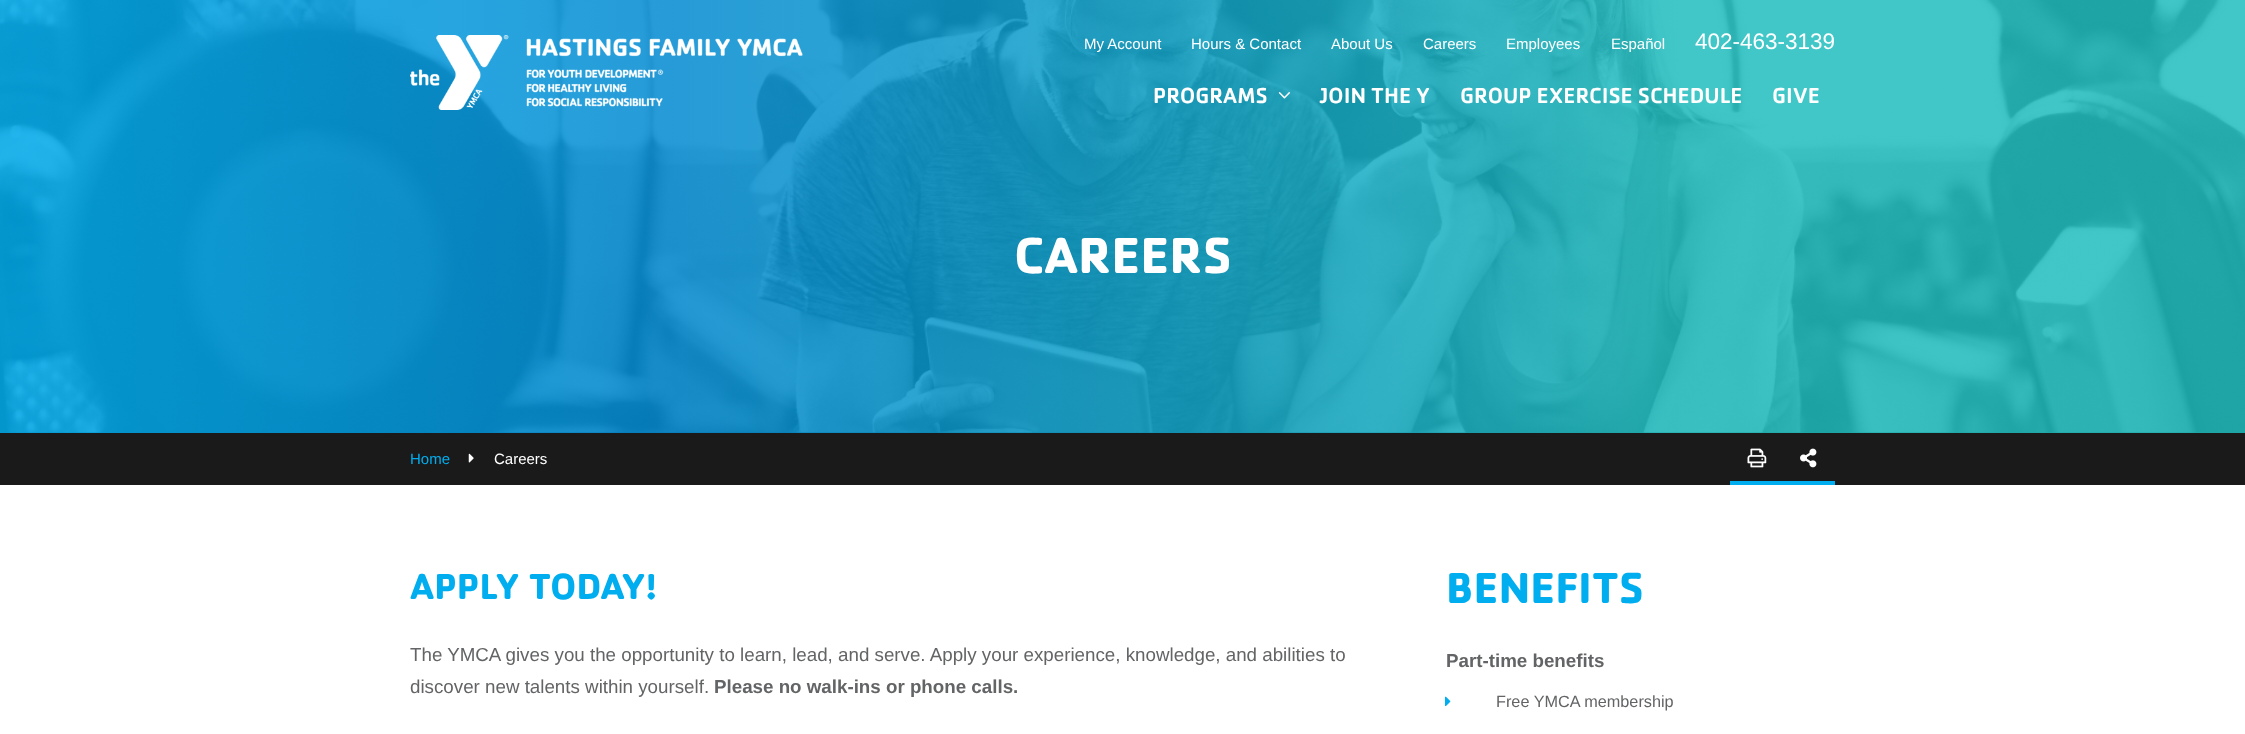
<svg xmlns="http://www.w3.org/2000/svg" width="2245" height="734">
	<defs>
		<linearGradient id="g1" gradientUnits="userSpaceOnUse" x1="0" y1="216" x2="2245" y2="216"><stop offset="0" stop-color="#00AEEF" stop-opacity="0.85" /><stop offset="0.3" stop-color="#0089D0" stop-opacity="0.85" /><stop offset="0.75" stop-color="#20BDBE" stop-opacity="0.85" /><stop offset="1" stop-color="#20BDBE" stop-opacity="0.85" /></linearGradient>
	</defs>
	<rect width="100%" height="100%" fill="#1A1A1A" />
	<image x="0" y="0" width="2245" height="433" href="assets/img3.png" />
	<rect x="0" y="0" width="2245" height="433" fill="url(#g1)" />
	<image x="410" y="35" width="393" height="75" href="assets/img1.png" />
	<g font-family="Liberation Sans" font-size="15" fill="#FFFFFF">
		<text x="1084" y="49">My Account</text>
		<text x="1191" y="49">Hours &amp; Contact</text>
		<text x="1331" y="49">About Us</text>
		<text x="1423" y="49">Careers</text>
		<text x="1506" y="49">Employees</text>
		<text x="1611" y="49">Español</text>
	</g>
	<text x="1695" y="49" font-family="Liberation Sans" font-size="22.5" fill="#FFFFFF">402-463-3139</text>
	<text x="1153" y="103" font-family="'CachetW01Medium'" font-size="22.5" font-weight="500" fill="#FFFFFF">PROGRAMS</text>
	<image x="1278" y="92" width="12" height="7" href="assets/img2.png" />
	<g font-family="'CachetW01Medium'" font-size="22.5" font-weight="500" fill="#FFFFFF">
		<text x="1320" y="103">JOIN THE Y</text>
		<text x="1460" y="103">GROUP EXERCISE SCHEDULE</text>
		<text x="1772" y="103">GIVE</text>
	</g>
	<text x="1014" y="273" font-family="'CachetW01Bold'" font-size="52.5" font-weight="700" fill="#FFFFFF">CAREERS</text>
	<text x="410" y="464" font-family="Liberation Sans" font-size="15" fill="#00AEEF">Home</text>
	<image x="468" y="453" width="6" height="10" href="assets/img4.png" />
	<text x="494" y="464" font-family="Liberation Sans" font-size="15" fill="#FFFFFF">Careers</text>
	<image x="1747" y="448" width="20" height="20" href="assets/img5.png" />
	<rect x="1730" y="481" width="105" height="4" fill="#00AEEF" />
	<image x="1800" y="448" width="17" height="20" href="assets/img6.png" />
	<rect x="0" y="485" width="2245" height="249" fill="#FFFFFF" />
	<text x="410" y="599" font-family="'CachetW01Bold'" font-size="37.5" font-weight="700" fill="#00AEEF">APPLY TODAY!</text>
	<g font-family="Liberation Sans" font-size="18.75" fill="#636466">
		<text x="410" y="661">The YMCA gives you the opportunity to learn, lead, and serve. Apply your experience, knowledge, and abilities to</text>
		<text x="410" y="693">discover new talents within yourself.</text>
	</g>
	<text x="714" y="693" font-family="Liberation Sans" font-size="18.75" font-weight="700" fill="#636466">Please no walk-ins or phone calls.</text>
	<text x="1446" y="603" font-family="'CachetW01Bold'" font-size="45" font-weight="700" fill="#00AEEF">BENEFITS</text>
	<text x="1446" y="667" font-family="Liberation Sans" font-size="18.75" font-weight="700" fill="#636466">Part-time benefits</text>
	<image x="1445" y="696" width="6" height="11" href="assets/img7.png" />
	<text x="1496" y="707" font-family="Liberation Sans" font-size="16.25" fill="#636466">Free YMCA membership</text>
</svg>
